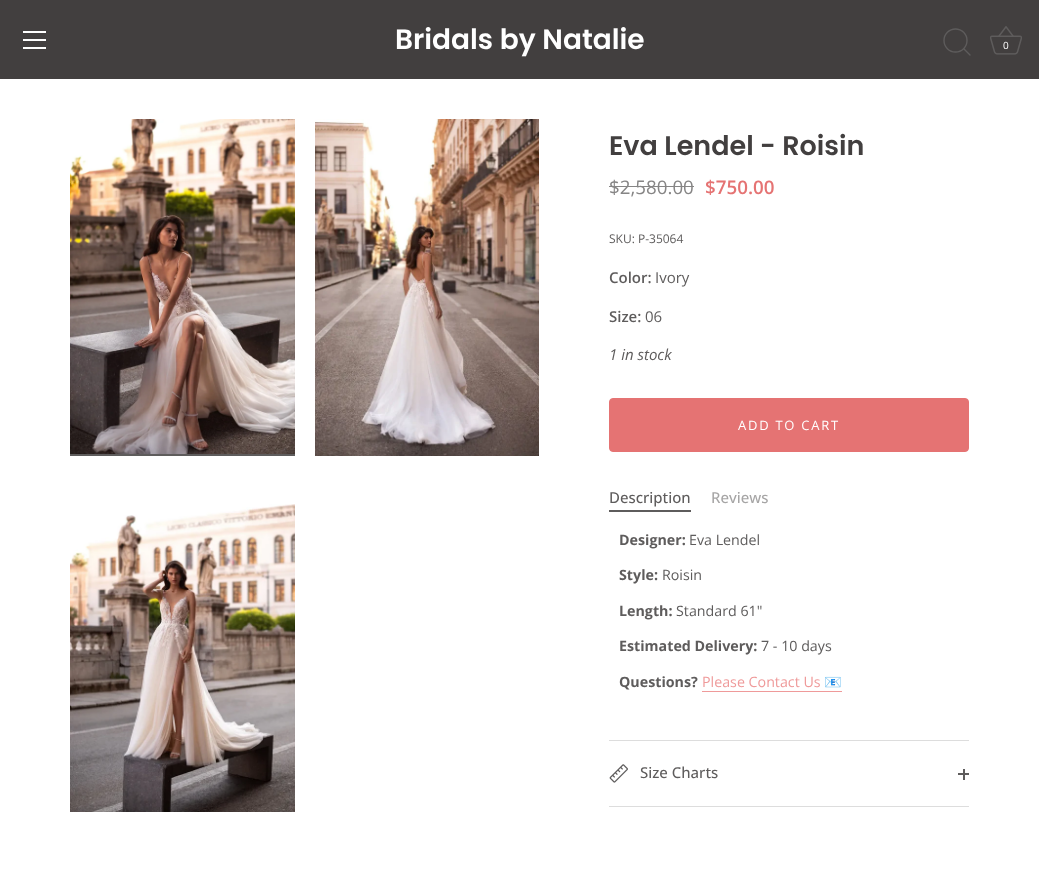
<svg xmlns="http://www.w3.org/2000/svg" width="1039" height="880">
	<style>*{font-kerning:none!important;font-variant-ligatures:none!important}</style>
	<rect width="100%" height="100%" fill="#FFFFFF" />
	<rect x="0" y="0" width="1039" height="79" fill="#423F3F" />
	<rect x="23" y="31" width="23" height="2" fill="#FFFFFF" />
	<rect x="23" y="39" width="23" height="2" fill="#FFFFFF" />
	<rect x="23" y="47" width="23" height="2" fill="#FFFFFF" />
	<text x="395" y="49" font-family="Poppins" font-size="28" font-weight="600" fill="#FFFFFF">Bridals by Natalie</text>
	<circle cx="955.5" cy="40.5" r="11.5" fill="none" stroke="#5E5C5C" stroke-width="1.4" />
	<path d="M970 55L964 49" fill="none" stroke="#5E5C5C" stroke-width="1.4" stroke-linecap="round" stroke-linejoin="round" />
	<image x="990" y="26" width="32" height="29" href="assets/img1.png" />
	<text x="1003" y="49" font-family="Open Sans" font-size="10" fill="#FFFFFF">0</text>
	<image x="70" y="119" width="225" height="335" href="assets/img2.png" />
	<rect x="70" y="454" width="225" height="2" fill="#5E5C5C" />
	<image x="70" y="504" width="225" height="308" href="assets/img3.png" />
	<image x="315" y="119" width="224" height="337" href="assets/img4.png" />
	<text x="609" y="155" font-family="Poppins" font-size="27" font-weight="600" fill="#423F3F">Eva Lendel - Roisin</text>
	<text x="609" y="194" font-family="Open Sans" font-size="18.75" fill="#868585">$2,580.00</text>
	<rect x="609" y="186" width="85" height="1" fill="#868585" />
	<text x="705" y="194" font-family="Open Sans" font-size="18.75" font-weight="600" fill="#E57373">$750.00</text>
	<text x="609" y="243" font-family="Open Sans" font-size="12" fill="#5E5C5C">SKU: P-35064</text>
	<text x="609" y="283" font-family="Open Sans" font-size="15" font-weight="600" fill="#5E5C5C">Color:</text>
	<text x="655" y="283" font-family="Open Sans" font-size="15" fill="#5E5C5C">Ivory</text>
	<text x="609" y="322" font-family="Open Sans" font-size="15" font-weight="600" fill="#5E5C5C">Size:</text>
	<text x="645" y="322" font-family="Open Sans" font-size="15" fill="#5E5C5C">06</text>
	<text x="609" y="360" font-family="Open Sans" font-size="15" font-style="italic" fill="#5E5C5C">1 in stock</text>
	<rect x="609.5" y="398.5" width="359" height="53" rx="3.5" fill="#E57373" stroke="#E57373" />
	<text x="738" y="430" font-family="Open Sans" font-size="13" letter-spacing="1.75" fill="#FFFFFF">ADD TO CART</text>
	<text x="609" y="503" font-family="Open Sans" font-size="15" font-weight="500" fill="#5E5C5C">Description</text>
	<text x="711" y="503" font-family="Open Sans" font-size="15" font-weight="500" fill="#A6A5A5">Reviews</text>
	<rect x="609" y="510" width="82" height="2" fill="#5E5C5C" />
	<text x="619" y="545" font-family="Open Sans" font-size="14.25" font-weight="700" fill="#5E5C5C">Designer:</text>
	<text x="689" y="545" font-family="Open Sans" font-size="14.25" fill="#5E5C5C">Eva Lendel</text>
	<text x="619" y="580" font-family="Open Sans" font-size="14.25" font-weight="700" fill="#5E5C5C">Style:</text>
	<text x="662" y="580" font-family="Open Sans" font-size="14.25" fill="#5E5C5C">Roisin</text>
	<text x="619" y="616" font-family="Open Sans" font-size="14.25" font-weight="700" fill="#5E5C5C">Length:</text>
	<text x="676" y="616" font-family="Open Sans" font-size="14.25" fill="#5E5C5C">Standard 61"</text>
	<text x="619" y="651" font-family="Open Sans" font-size="14.25" font-weight="700" fill="#5E5C5C">Estimated Delivery:</text>
	<text x="761" y="651" font-family="Open Sans" font-size="14.25" fill="#5E5C5C">7 - 10 days</text>
	<text x="619" y="687" font-family="Open Sans" font-size="14.25" font-weight="700" fill="#5E5C5C">Questions?</text>
	<text x="702" y="687" font-family="Open Sans" font-size="14.25" fill="#EF9A9A">Please Contact Us</text>
	<rect x="702" y="691" width="140" height="1" fill="#EF9A9A" />
	<text x="824" y="687" font-family="Noto Color Emoji" font-size="14.25" fill="#EF9A9A">📧</text>
	<rect x="609" y="740" width="360" height="1" fill="#DDDDDD" />
	<rect x="609" y="806" width="360" height="1" fill="#DDDDDD" />
	<image x="609" y="764" width="19" height="19" href="assets/img5.png" />
	<text x="640" y="778" font-family="Open Sans" font-size="15" font-weight="500" fill="#5E5C5C">Size Charts</text>
	<rect x="963" y="769" width="2" height="11" fill="#5E5C5C" />
	<rect x="958" y="773" width="11" height="2" fill="#5E5C5C" />
</svg>
